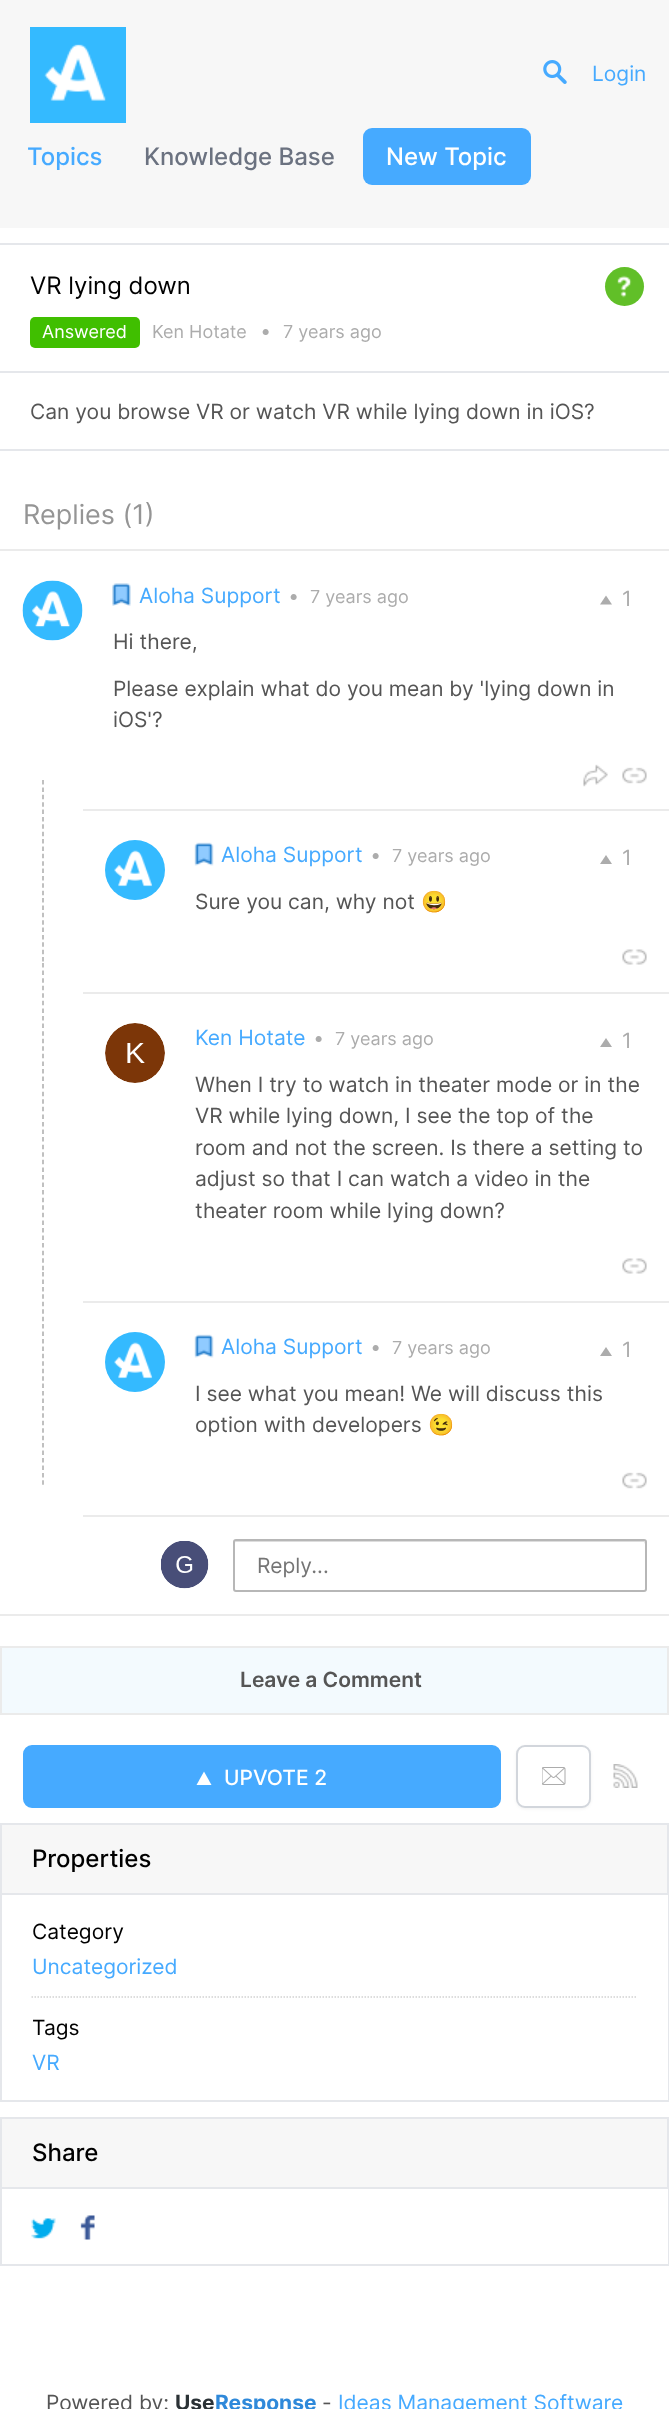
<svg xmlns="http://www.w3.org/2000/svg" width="669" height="2409">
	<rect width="100%" height="100%" fill="#FFFFFF" />
	<rect x="0" y="0" width="669" height="228" fill="#F7F7F7" />
	<image x="30" y="27" width="96" height="96" href="assets/img1.png" />
	<image x="543" y="60" width="24" height="24" href="assets/img2.png" />
	<text x="592" y="81" font-family="Inter" font-size="21" fill="#46AAFF">Login</text>
	<text x="27" y="165" font-family="Inter" font-size="24" font-weight="500" fill="#46AAFF">Topics</text>
	<text x="144" y="165" font-family="Inter" font-size="24" font-weight="500" fill="#6B7280">Knowledge Base</text>
	<rect x="363" y="128" width="168" height="57" rx="9" fill="#46AAFF" />
	<text x="386" y="165" font-family="Inter" font-size="24" font-weight="500" fill="#FFFFFF">New Topic</text>
	<rect x="0" y="243" width="669" height="2" fill="#E5E7EB" />
	<rect x="0" y="449" width="669" height="2" fill="#E5E7EB" />
	<rect x="0" y="371" width="669" height="2" fill="#E5E7EB" />
	<text x="30" y="294" font-family="Inter" font-size="24" fill="#000000">VR lying down</text>
	<rect x="30" y="317" width="110" height="31" rx="5" fill="#40BF00" />
	<text x="42" y="338" font-family="Inter" font-size="18" fill="#FFFFFF">Answered</text>
	<text x="152" y="338" font-family="Inter" font-size="18" fill="#ACACAC">Ken Hotate</text>
	<text x="262" y="335" font-family="Inter" font-size="8" fill="#ACACAC">●</text>
	<text x="283" y="338" font-family="Inter" font-size="18" fill="#ACACAC">7 years ago</text>
	<circle cx="624.5" cy="286.5" r="19.5" fill="#61BF28" />
	<image x="617" y="275" width="15" height="23" href="assets/img3.png" />
	<text x="30" y="419" font-family="Inter" font-size="21" fill="#555555">Can you browse VR or watch VR while lying down in iOS?</text>
	<rect x="0" y="549" width="669" height="2" fill="#EBEBEB" />
	<text x="23" y="524" font-family="Inter" font-size="27" fill="#959595">Replies (1)</text>
	<image x="22" y="580" width="61" height="61" href="assets/img4.png" />
	<image x="112" y="583" width="19" height="23" href="assets/img5.png" />
	<text x="139" y="603" font-family="Inter" font-size="21" fill="#46AAFF">Aloha Support</text>
	<text x="290" y="600" font-family="Inter" font-size="8" fill="#ACACAC">●</text>
	<text x="310" y="603" font-family="Inter" font-size="18" fill="#ACACAC">7 years ago</text>
	<image x="583" y="764" width="25" height="23" href="assets/img6.png" />
	<image x="622" y="767" width="25" height="17" href="assets/img7.png" />
	<path d="M612 604.5H600L606 595.5Z" fill="#ACACAC" />
	<text x="622" y="606" font-family="Inter" font-size="21" fill="#ACACAC">1</text>
	<g font-family="Inter" font-size="21" fill="#555555">
		<text x="113" y="649">Hi there,</text>
		<text x="113" y="696">Please explain what do you mean by 'lying down in</text>
		<text x="113" y="727">iOS'?</text>
	</g>
	<rect x="83" y="809" width="586" height="2" fill="#EBEBEB" />
	<rect x="83" y="992" width="586" height="2" fill="#EBEBEB" />
	<path d="M43 780V961.5" fill="none" stroke="#ACACAC" stroke-width="1.5" stroke-dasharray="4.5 2.88" />
	<image x="105" y="840" width="60" height="60" href="assets/img8.png" />
	<image x="194" y="842" width="20" height="24" href="assets/img9.png" />
	<text x="221" y="862" font-family="Inter" font-size="21" fill="#46AAFF">Aloha Support</text>
	<text x="372" y="859" font-family="Inter" font-size="8" fill="#ACACAC">●</text>
	<text x="392" y="862" font-family="Inter" font-size="18" fill="#ACACAC">7 years ago</text>
	<image x="622" y="949" width="25" height="16" href="assets/img10.png" />
	<path d="M612 864H600L606 855Z" fill="#ACACAC" />
	<text x="622" y="865" font-family="Inter" font-size="21" fill="#ACACAC">1</text>
	<text x="195" y="909" font-family="Inter" font-size="21" fill="#555555">Sure you can, why not</text>
	<text x="421" y="909" font-family="Noto Color Emoji" font-size="21" fill="#555555">😃</text>
	<rect x="83" y="1301" width="586" height="2" fill="#EBEBEB" />
	<path d="M43 963V1270.5" fill="none" stroke="#ACACAC" stroke-width="1.5" stroke-dasharray="4.5 3.07" />
	<image x="105" y="1023" width="60" height="60" href="assets/img11.png" />
	<text x="195" y="1045" font-family="Inter" font-size="21" fill="#46AAFF">Ken Hotate</text>
	<text x="315" y="1042" font-family="Inter" font-size="8" fill="#ACACAC">●</text>
	<text x="335" y="1045" font-family="Inter" font-size="18" fill="#ACACAC">7 years ago</text>
	<image x="622" y="1258" width="25" height="16" href="assets/img10.png" />
	<path d="M612 1047H600L606 1038Z" fill="#ACACAC" />
	<text x="622" y="1048" font-family="Inter" font-size="21" fill="#ACACAC">1</text>
	<g font-family="Inter" font-size="21" fill="#555555">
		<text x="195" y="1092">When I try to watch in theater mode or in the</text>
		<text x="195" y="1123">VR while lying down, I see the top of the</text>
		<text x="195" y="1155">room and not the screen. Is there a setting to</text>
		<text x="195" y="1186">adjust so that I can watch a video in the</text>
		<text x="195" y="1218">theater room while lying down?</text>
	</g>
	<rect x="83" y="1515" width="586" height="2" fill="#EBEBEB" />
	<path d="M43 1272V1485" fill="none" stroke="#ACACAC" stroke-width="1.5" stroke-dasharray="4.5 2.94" />
	<image x="105" y="1332" width="60" height="60" href="assets/img8.png" />
	<image x="194" y="1334" width="20" height="24" href="assets/img9.png" />
	<text x="221" y="1354" font-family="Inter" font-size="21" fill="#46AAFF">Aloha Support</text>
	<text x="372" y="1351" font-family="Inter" font-size="8" fill="#ACACAC">●</text>
	<text x="392" y="1354" font-family="Inter" font-size="18" fill="#ACACAC">7 years ago</text>
	<image x="622" y="1472" width="25" height="17" href="assets/img7.png" />
	<path d="M612 1356H600L606 1347Z" fill="#ACACAC" />
	<text x="622" y="1357" font-family="Inter" font-size="21" fill="#ACACAC">1</text>
	<g font-family="Inter" font-size="21" fill="#555555">
		<text x="195" y="1401">I see what you mean! We will discuss this</text>
		<text x="195" y="1432">option with developers</text>
	</g>
	<text x="428" y="1432" font-family="Noto Color Emoji" font-size="21" fill="#555555">😉</text>
	<rect x="0" y="1614" width="669" height="2" fill="#EBEBEB" />
	<image x="161" y="1541" width="48" height="48" href="assets/img12.png" />
	<path d="M236 1542H644L645 1544C645 1543 645 1541 644 1541H236L234 1542V1544C234 1543 235 1542 236 1542Z" fill="#DDDDDD" />
	<rect x="234" y="1540" width="412" height="51" rx="2" fill="none" stroke="#B7B7B7" stroke-width="2" />
	<text x="257" y="1573" font-family="Inter" font-size="21" fill="#757575">Reply...</text>
	<rect x="1" y="1647" width="667" height="67" fill="#F3FAFE" stroke="#EBEBEB" stroke-width="2" />
	<text x="240" y="1687" font-family="Inter" font-size="21" font-weight="600" fill="#555555">Leave a Comment</text>
	<rect x="24" y="1746" width="476" height="61" rx="8" fill="#46AAFF" stroke="#46AAFF" stroke-width="2" />
	<path d="M211.5 1785H196.5L204 1771.5Z" fill="#FFFFFF" />
	<text x="224" y="1785" font-family="Inter" font-size="21" font-weight="500" fill="#FFFFFF">UPVOTE 2</text>
	<rect x="516" y="1746" width="75" height="63" rx="9" fill="#000000" fill-opacity="0.05" filter="blur(1.5px)" />
	<rect x="517" y="1746" width="73" height="61" rx="8" fill="#FFFFFF" stroke="#D2D6DC" stroke-width="2" />
	<image x="542" y="1767" width="24" height="18" href="assets/img13.png" />
	<image x="613" y="1764" width="25" height="24" href="assets/img14.png" />
	<rect x="1" y="1824" width="667" height="70" fill="#F7F7F7" stroke="#E5E7EB" stroke-width="2" />
	<text x="32" y="1867" font-family="Inter" font-size="24" font-weight="500" fill="#000000">Properties</text>
	<rect x="668" y="1895" width="1" height="207" fill="#E5E7EB" />
	<rect x="0" y="2100" width="669" height="2" fill="#E5E7EB" />
	<rect x="0" y="1895" width="2" height="207" fill="#E5E7EB" />
	<text x="32" y="1939" font-family="Inter" font-size="21" fill="#000000">Category</text>
	<text x="32" y="1974" font-family="Inter" font-size="21" fill="#46AAFF">Uncategorized</text>
	<path d="M31.5 1997H637.5" fill="none" stroke="#D2D2D2" stroke-width="1.5" stroke-dasharray="1.5 1.5" />
	<text x="32" y="2035" font-family="Inter" font-size="21" fill="#000000">Tags</text>
	<text x="32" y="2070" font-family="Inter" font-size="21" fill="#46AAFF">VR</text>
	<rect x="1" y="2118" width="667" height="70" fill="#F7F7F7" stroke="#E5E7EB" stroke-width="2" />
	<text x="32" y="2161" font-family="Inter" font-size="24" font-weight="500" fill="#000000">Share</text>
	<rect x="668" y="2189" width="1" height="76" fill="#E5E7EB" />
	<rect x="0" y="2264" width="669" height="2" fill="#E5E7EB" />
	<rect x="0" y="2189" width="2" height="76" fill="#E5E7EB" />
	<image x="31" y="2218" width="25" height="21" href="assets/img15.png" />
	<image x="80" y="2215" width="15" height="25" href="assets/img16.png" />
	<text x="46" y="2410" font-family="Inter" font-size="21" fill="#555555">Powered by:</text>
	<text x="175" y="2410" font-family="Inter" font-size="21" font-weight="700" fill="#2B3236">Use</text>
	<text x="215" y="2410" font-family="Inter" font-size="21" font-weight="700" fill="#2F89DA">Response</text>
	<text x="322" y="2410" font-family="Inter" font-size="21" fill="#555555">-</text>
	<text x="338" y="2410" font-family="Inter" font-size="21" fill="#46AAFF">Ideas Management Software</text>
</svg>
